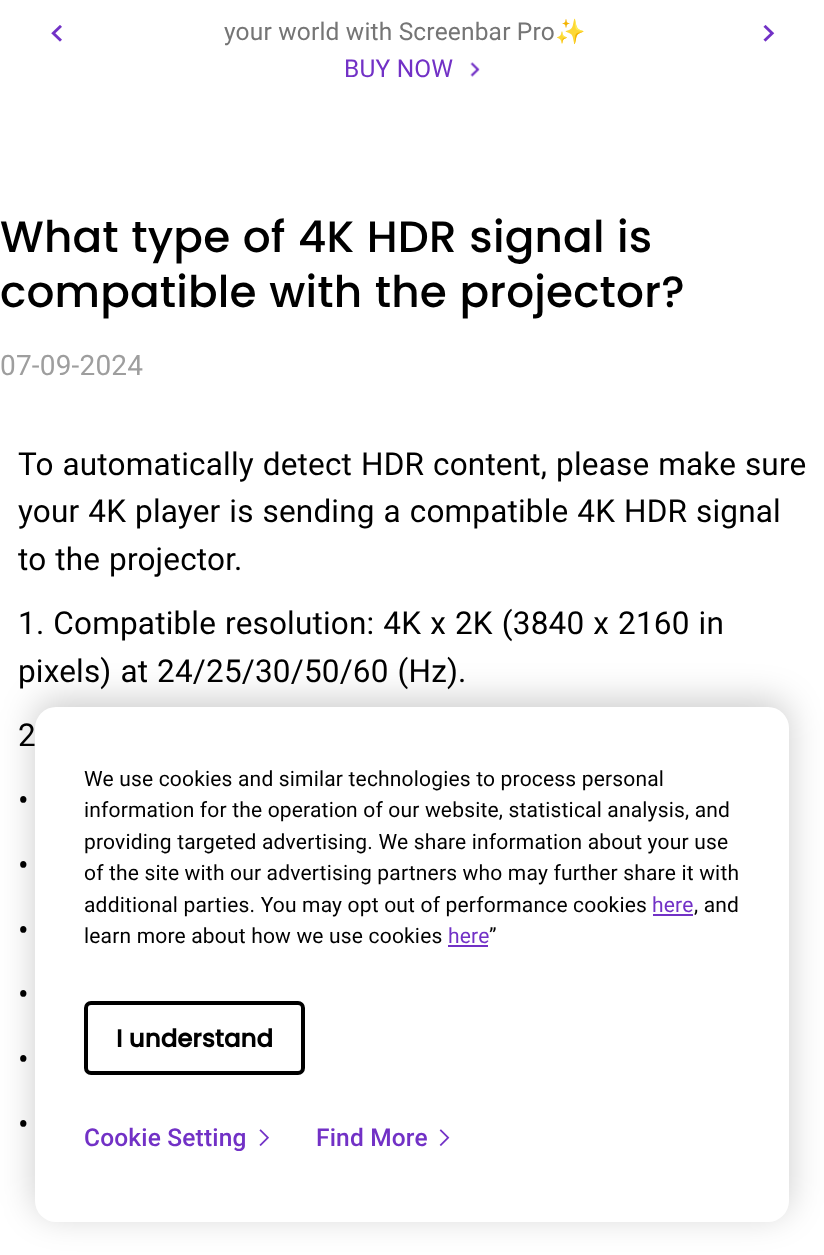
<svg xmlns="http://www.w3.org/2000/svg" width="824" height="1255">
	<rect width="100%" height="100%" fill="#FFFFFF" />
	<image x="51" y="25" width="11" height="17" href="assets/img1.png" />
	<text x="224" y="40" font-family="Roboto" font-size="24.5" letter-spacing="0.18" fill="#757575">your world with Screenbar Pro</text>
	<text x="555" y="40" font-family="Noto Color Emoji" font-size="24.5" letter-spacing="0.18" fill="#757575">✨</text>
	<text x="344" y="77" font-family="Roboto" font-size="24.5" letter-spacing="0.18" fill="#7231C6">BUY NOW</text>
	<image x="470" y="62" width="10" height="15" href="assets/img2.png" />
	<image x="763" y="24" width="12" height="18" href="assets/img3.png" />
	<rect x="35" y="700" width="754" height="515" rx="21" fill="#000000" fill-opacity="0.2" filter="blur(17.5px)" />
	<rect x="35" y="707" width="754" height="515" rx="21" fill="#FFFFFF" />
	<g font-family="Roboto" font-size="21" letter-spacing="0.18" fill="#000000">
		<text x="84" y="786">We use cookies and similar technologies to process personal</text>
		<text x="84" y="817">information for the operation of our website, statistical analysis, and</text>
		<text x="84" y="849">providing targeted advertising. We share information about your use</text>
		<text x="84" y="880">of the site with our advertising partners who may further share it with</text>
		<text x="84" y="912">additional parties. You may opt out of performance cookies</text>
	</g>
	<text x="652" y="912" font-family="Roboto" font-size="21" letter-spacing="0.18" fill="#7231C6">here</text>
	<rect x="653" y="914" width="40" height="2" fill="#7231C6" />
	<g font-family="Roboto" font-size="21" letter-spacing="0.18" fill="#000000">
		<text x="694" y="912">, and</text>
		<text x="84" y="943">learn more about how we use cookies</text>
	</g>
	<text x="448" y="943" font-family="Roboto" font-size="21" letter-spacing="0.18" fill="#7231C6">here</text>
	<rect x="448" y="945" width="40" height="2" fill="#7231C6" />
	<text x="489" y="943" font-family="Roboto" font-size="21" letter-spacing="0.18" fill="#000000">”</text>
	<rect x="86" y="1003" width="217" height="70" rx="5" fill="none" stroke="#000000" stroke-width="4" />
	<text x="116" y="1047" font-family="Poppins" font-size="24.5" font-weight="700" fill="#000000">I understand</text>
	<text x="84" y="1146" font-family="Roboto" font-size="24.5" font-weight="500" letter-spacing="0.18" fill="#7231C6">Cookie Setting</text>
	<image x="259" y="1129" width="10" height="17" href="assets/img4.png" />
	<text x="316" y="1146" font-family="Roboto" font-size="24.5" font-weight="500" letter-spacing="0.18" fill="#7231C6">Find More</text>
	<image x="439" y="1129" width="11" height="17" href="assets/img5.png" />
	<g font-family="Poppins" font-size="43.75" font-weight="500" letter-spacing="0.18" fill="#000000">
		<text x="0" y="252" word-spacing="0.9">What type of 4K HDR signal is</text>
		<text x="0" y="307" word-spacing="0.9">compatible with the projector?</text>
	</g>
	<text x="0" y="375" font-family="Roboto" font-size="28" letter-spacing="0.18" fill="#9E9E9E">07-09-2024</text>
	<g font-family="Roboto" font-size="31.5" letter-spacing="0.18" fill="#000000">
		<text x="18" y="475" word-spacing="0.9">To automatically detect HDR content, please make sure</text>
		<text x="18" y="522" word-spacing="0.9">your 4K player is sending a compatible 4K HDR signal</text>
		<text x="18" y="570" word-spacing="0.9">to the projector.</text>
		<text x="18" y="634" word-spacing="1">1. Compatible resolution: 4K x 2K (3840 x 2160 in</text>
		<text x="18" y="682" word-spacing="0.9">pixels) at 24/25/30/50/60 (Hz).</text>
		<text x="18" y="746" word-spacing="1">2</text>
		<text x="18" y="811" word-spacing="0.9">•</text>
		<text x="18" y="876" word-spacing="0.9">•</text>
		<text x="18" y="941" word-spacing="0.9">•</text>
		<text x="18" y="1005" word-spacing="0.9">•</text>
		<text x="18" y="1070" word-spacing="0.9">•</text>
		<text x="18" y="1135" word-spacing="0.9">•</text>
	</g>
</svg>
